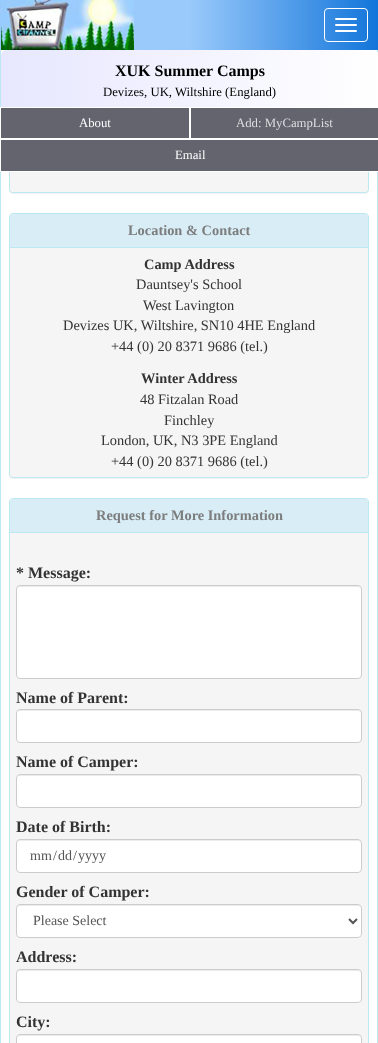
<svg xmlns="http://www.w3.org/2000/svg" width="378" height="1043">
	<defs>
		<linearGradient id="g1" gradientUnits="userSpaceOnUse" x1="0" y1="25" x2="378" y2="25"><stop offset="0" stop-color="#9ACAFB" /><stop offset="0.5" stop-color="#9ACAFB" /><stop offset="1" stop-color="#1275DA" /></linearGradient>
		<linearGradient id="g2" gradientUnits="userSpaceOnUse" x1="1" y1="111" x2="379" y2="111"><stop offset="0" stop-color="#E7E7FF" /><stop offset="1" stop-color="#FFFFFF" /></linearGradient>
	</defs>
	<rect width="100%" height="100%" fill="#FFFFFF" />
	<rect x="0.5" y="-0.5" width="377" height="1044" fill="none" stroke="#BCE8F1" />
	<rect x="9" y="-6" width="360" height="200" rx="4" fill="#000000" fill-opacity="0.05" filter="blur(0.5px)" />
	<rect x="9.5" y="-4.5" width="359" height="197" rx="3.5" fill="none" stroke="#BCE8F1" />
	<path d="M10-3H368V189C368 190.5 366.5 192 365 192H13C11.5 192 10 190.5 10 189Z" fill="#F5F5F5" />
	<rect x="0" y="0" width="378" height="50" fill="url(#g1)" />
	<image x="1" y="0" width="133" height="50" href="assets/img1.png" />
	<rect x="324.5" y="8.5" width="43" height="33" rx="3.5" fill="none" stroke="#FFFFFF" />
	<rect x="335" y="18" width="22" height="2" rx="1" fill="#FFFFFF" />
	<rect x="335" y="24" width="22" height="2" rx="1" fill="#FFFFFF" />
	<rect x="335" y="30" width="22" height="2" rx="1" fill="#FFFFFF" />
	<path d="M7 50H373C376.5 50 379 52.5 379 56V172H1V56C1 52.5 3.5 50 7 50Z" fill="url(#g2)" />
	<text x="115" y="76" font-family="Liberation Serif" font-size="16" font-weight="700" fill="#000000">XUK Summer Camps</text>
	<text x="103" y="96" font-family="Liberation Serif" font-size="12.75" fill="#000000">Devizes, UK, Wiltshire (England)</text>
	<rect x="0.5" y="107.5" width="189" height="31" fill="#64646F" stroke="#FFFFFF" />
	<text x="79" y="127" font-family="Liberation Serif" font-size="12.75" fill="#FFFFFF">About</text>
	<rect x="190.5" y="107.5" width="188" height="31" fill="#64646F" stroke="#FFFFFF" />
	<text x="236" y="127" font-family="Liberation Serif" font-size="12.75" fill="#DFDEE0">Add: MyCampList</text>
	<rect x="0.5" y="139.5" width="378" height="32" fill="#64646F" stroke="#FFFFFF" />
	<text x="175" y="159" font-family="Liberation Serif" font-size="12.75" fill="#FFFFFF">Email</text>
	<rect x="9" y="214" width="360" height="265" rx="4" fill="#000000" fill-opacity="0.05" filter="blur(0.5px)" />
	<rect x="9.5" y="213.5" width="359" height="264" rx="3.5" fill="none" stroke="#BCE8F1" />
	<path d="M13 214H365C366.5 214 368 215.5 368 217V248H10V217C10 215.5 11.5 214 13 214Z" fill="#D9EDF7" />
	<rect x="10" y="247" width="358" height="1" fill="#BCE8F1" />
	<text x="128" y="235" font-family="Liberation Serif" font-size="14.4" font-weight="700" fill="#7C7D7D">Location &amp; Contact</text>
	<path d="M10 248H368V474C368 475.5 366.5 477 365 477H13C11.5 477 10 475.5 10 474Z" fill="#F5F5F5" />
	<text x="144" y="269" font-family="Liberation Serif" font-size="14.4" font-weight="700" fill="#333333">Camp Address</text>
	<g font-family="Liberation Serif" font-size="14.4" fill="#333333">
		<text x="136" y="289">Dauntsey's School</text>
		<text x="143" y="310">West Lavington</text>
		<text x="63" y="330">Devizes UK, Wiltshire, SN10 4HE England</text>
		<text x="111" y="351">+44 (0) 20 8371 9686 (tel.)</text>
	</g>
	<text x="141" y="383" font-family="Liberation Serif" font-size="14.4" font-weight="700" fill="#333333">Winter Address</text>
	<g font-family="Liberation Serif" font-size="14.4" fill="#333333">
		<text x="140" y="404">48 Fitzalan Road</text>
		<text x="164" y="425">Finchley</text>
		<text x="101" y="445">London, UK, N3 3PE England</text>
		<text x="111" y="466">+44 (0) 20 8371 9686 (tel.)</text>
	</g>
	<rect x="9.5" y="498.5" width="359" height="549" rx="3.5" fill="none" stroke="#BCE8F1" />
	<path d="M13 499H365C366.5 499 368 500.5 368 502V533H10V502C10 500.5 11.5 499 13 499Z" fill="#D9EDF7" />
	<rect x="10" y="532" width="358" height="1" fill="#BCE8F1" />
	<text x="96" y="520" font-family="Liberation Serif" font-size="14.4" font-weight="700" fill="#7C7D7D">Request for More Information</text>
	<rect x="10" y="533" width="358" height="510" fill="#F5F5F5" />
	<text x="16" y="578" font-family="Liberation Serif" font-size="16" font-weight="700" fill="#333333">* Message:</text>
	<rect x="16" y="585" width="346" height="94" rx="4" fill="#FFFFFF" />
	<path d="M20 587H358C360 587 361 588 361 590C361 588 360 586 358 586H20C18 586 17 588 17 590C17 588 18 587 20 587Z" fill="#ECECEC" />
	<rect x="16.5" y="585.5" width="345" height="93" rx="3.5" fill="none" stroke="#CCCCCC" />
	<text x="16" y="703" font-family="Liberation Serif" font-size="16" font-weight="700" fill="#333333">Name of Parent:</text>
	<rect x="16" y="709" width="346" height="34" rx="4" fill="#FFFFFF" />
	<path d="M20 711H358C360 711 361 712 361 714C361 712 360 710 358 710H20C18 710 17 712 17 714C17 712 18 711 20 711Z" fill="#ECECEC" />
	<rect x="16.5" y="709.5" width="345" height="33" rx="3.5" fill="none" stroke="#CCCCCC" />
	<text x="16" y="767" font-family="Liberation Serif" font-size="16" font-weight="700" fill="#333333">Name of Camper:</text>
	<rect x="16" y="774" width="346" height="34" rx="4" fill="#FFFFFF" />
	<path d="M20 776H358C360 776 361 777 361 779C361 777 360 775 358 775H20C18 775 17 777 17 779C17 777 18 776 20 776Z" fill="#ECECEC" />
	<rect x="16.5" y="774.5" width="345" height="33" rx="3.5" fill="none" stroke="#CCCCCC" />
	<text x="16" y="832" font-family="Liberation Serif" font-size="16" font-weight="700" fill="#333333">Date of Birth:</text>
	<rect x="16" y="839" width="346" height="34" rx="4" fill="#FFFFFF" />
	<path d="M20 841H358C360 841 361 842 361 844C361 842 360 840 358 840H20C18 840 17 842 17 844C17 842 18 841 20 841Z" fill="#ECECEC" />
	<rect x="16.5" y="839.5" width="345" height="33" rx="3.5" fill="none" stroke="#CCCCCC" />
	<g font-family="Liberation Serif" font-size="14" fill="#555555">
		<text x="30" y="860">mm</text>
		<text x="53" y="860">/</text>
		<text x="58" y="860">dd</text>
		<text x="73" y="860">/</text>
		<text x="78" y="860">yyyy</text>
	</g>
	<text x="16" y="897" font-family="Liberation Serif" font-size="16" font-weight="700" fill="#333333">Gender of Camper:</text>
	<rect x="16" y="904" width="346" height="34" rx="4" fill="#FFFFFF" />
	<path d="M20 906H358C360 906 361 907 361 909C361 907 360 905 358 905H20C18 905 17 907 17 909C17 907 18 906 20 906Z" fill="#ECECEC" />
	<rect x="16.5" y="904.5" width="345" height="33" rx="3.5" fill="none" stroke="#CCCCCC" />
	<path d="M349 919L353 923L357 919" fill="none" stroke="#555555" stroke-width="2" />
	<text x="33" y="925" font-family="Liberation Serif" font-size="14" fill="#555555">Please Select</text>
	<text x="16" y="962" font-family="Liberation Serif" font-size="16" font-weight="700" fill="#333333">Address:</text>
	<rect x="16" y="969" width="346" height="34" rx="4" fill="#FFFFFF" />
	<path d="M20 971H358C360 971 361 972 361 974C361 972 360 970 358 970H20C18 970 17 972 17 974C17 972 18 971 20 971Z" fill="#ECECEC" />
	<rect x="16.5" y="969.5" width="345" height="33" rx="3.5" fill="none" stroke="#CCCCCC" />
	<text x="16" y="1027" font-family="Liberation Serif" font-size="16" font-weight="700" fill="#333333">City:</text>
	<rect x="16" y="1034" width="346" height="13" rx="4" fill="#FFFFFF" />
	<path d="M20 1036H358C360 1036 361 1037 361 1039C361 1037 360 1035 358 1035H20C18 1035 17 1037 17 1039C17 1037 18 1036 20 1036Z" fill="#ECECEC" />
	<rect x="16.5" y="1034.5" width="345" height="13" rx="3.5" fill="none" stroke="#CCCCCC" />
</svg>
